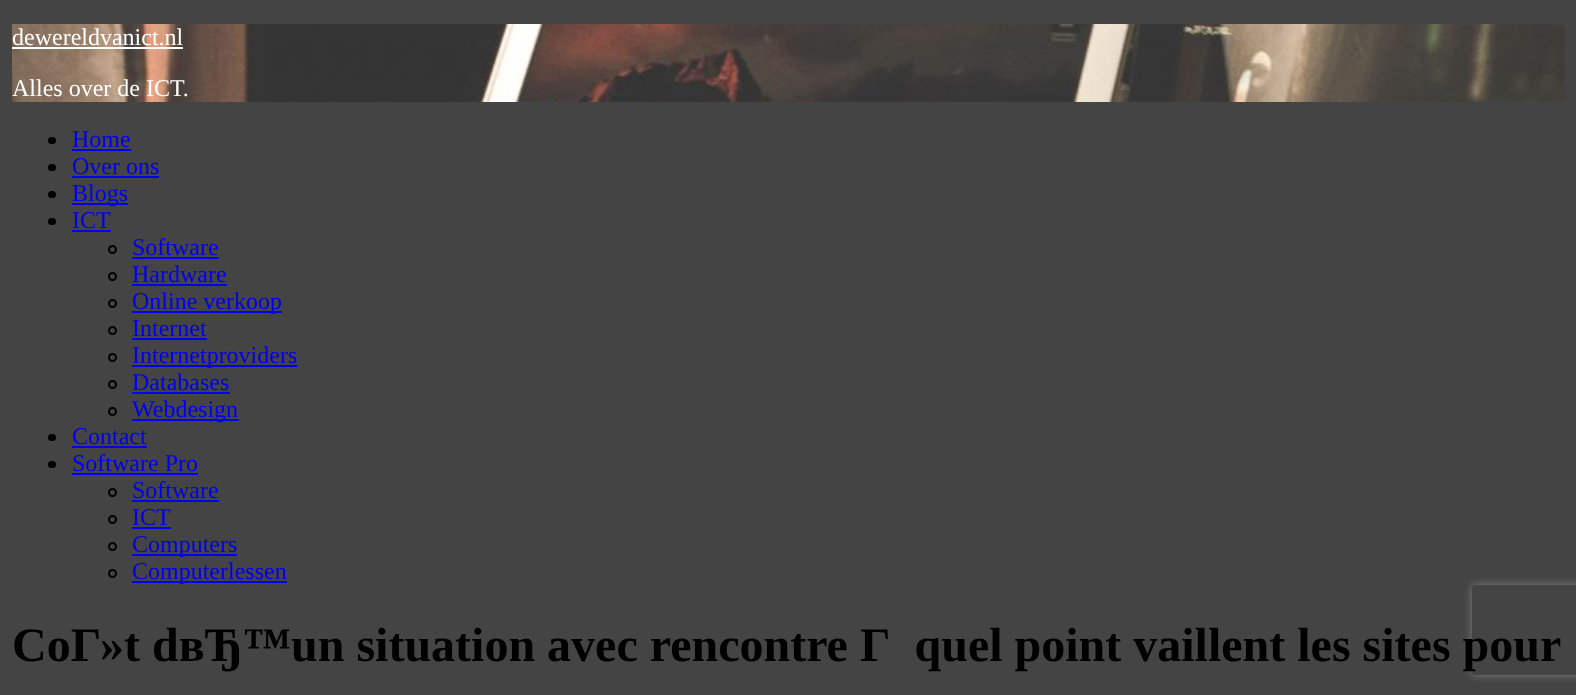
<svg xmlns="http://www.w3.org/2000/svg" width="1576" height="695">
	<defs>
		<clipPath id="clip1"><path d="M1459 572H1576V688H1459ZM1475 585H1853C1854.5 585 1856 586.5 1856 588V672C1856 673.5 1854.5 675 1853 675H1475C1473.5 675 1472 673.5 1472 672V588C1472 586.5 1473.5 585 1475 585Z" clip-rule="evenodd" /></clipPath>
	</defs>
	<rect width="100%" height="100%" fill="#444444" />
	<image x="12" y="24" width="1553" height="78" href="assets/img1.png" />
	<text x="12" y="45" font-family="Liberation Serif" font-size="24" fill="#FFFFFF">dewereldvanict.nl</text>
	<rect x="12" y="47" width="171" height="2" fill="#FFFFFF" />
	<text x="12" y="96" font-family="Liberation Serif" font-size="24" fill="#FFFFFF">Alles over de ICT.</text>
	<rect x="48" y="137" width="8" height="7" rx="3.5" fill="#000000" />
	<text x="72" y="147" font-family="Liberation Serif" font-size="24" fill="#0000EE">Home</text>
	<rect x="72" y="149" width="59" height="2" fill="#0000EE" />
	<rect x="48" y="164" width="8" height="7" rx="3.5" fill="#000000" />
	<text x="72" y="174" font-family="Liberation Serif" font-size="24" fill="#0000EE">Over ons</text>
	<rect x="72" y="176" width="87" height="2" fill="#0000EE" />
	<rect x="48" y="191" width="8" height="7" rx="3.5" fill="#000000" />
	<rect x="72" y="203" width="56" height="2" fill="#0000EE" />
	<text x="72" y="201" font-family="Liberation Serif" font-size="24" fill="#0000EE">Blogs</text>
	<rect x="48" y="218" width="8" height="7" rx="3.5" fill="#000000" />
	<text x="72" y="228" font-family="Liberation Serif" font-size="24" fill="#0000EE">ICT</text>
	<rect x="72" y="230" width="39" height="2" fill="#0000EE" />
	<circle cx="112.5" cy="249.5" r="3.5" fill="none" stroke="#000000" stroke-width="2" />
	<text x="132" y="255" font-family="Liberation Serif" font-size="24" fill="#0000EE">Software</text>
	<rect x="132" y="257" width="87" height="2" fill="#0000EE" />
	<circle cx="112.5" cy="276.5" r="3.5" fill="none" stroke="#000000" stroke-width="2" />
	<text x="132" y="282" font-family="Liberation Serif" font-size="24" fill="#0000EE">Hardware</text>
	<rect x="132" y="284" width="95" height="2" fill="#0000EE" />
	<circle cx="112.5" cy="303.5" r="3.5" fill="none" stroke="#000000" stroke-width="2" />
	<rect x="132" y="311" width="150" height="2" fill="#0000EE" />
	<text x="132" y="309" font-family="Liberation Serif" font-size="24" fill="#0000EE">Online verkoop</text>
	<circle cx="112.5" cy="330.5" r="3.5" fill="none" stroke="#000000" stroke-width="2" />
	<text x="132" y="336" font-family="Liberation Serif" font-size="24" fill="#0000EE">Internet</text>
	<rect x="132" y="338" width="75" height="2" fill="#0000EE" />
	<circle cx="112.5" cy="357.5" r="3.5" fill="none" stroke="#000000" stroke-width="2" />
	<rect x="132" y="365" width="165" height="2" fill="#0000EE" />
	<text x="132" y="363" font-family="Liberation Serif" font-size="24" fill="#0000EE">Internetproviders</text>
	<circle cx="112.5" cy="384.5" r="3.5" fill="none" stroke="#000000" stroke-width="2" />
	<text x="132" y="390" font-family="Liberation Serif" font-size="24" fill="#0000EE">Databases</text>
	<rect x="132" y="392" width="98" height="2" fill="#0000EE" />
	<circle cx="112.5" cy="411.5" r="3.5" fill="none" stroke="#000000" stroke-width="2" />
	<rect x="132" y="419" width="107" height="2" fill="#0000EE" />
	<text x="132" y="417" font-family="Liberation Serif" font-size="24" fill="#0000EE">Webdesign</text>
	<rect x="48" y="434" width="8" height="7" rx="3.5" fill="#000000" />
	<text x="72" y="444" font-family="Liberation Serif" font-size="24" fill="#0000EE">Contact</text>
	<rect x="72" y="446" width="75" height="2" fill="#0000EE" />
	<rect x="48" y="461" width="8" height="7" rx="3.5" fill="#000000" />
	<text x="72" y="471" font-family="Liberation Serif" font-size="24" fill="#0000EE">Software Pro</text>
	<rect x="72" y="473" width="126" height="2" fill="#0000EE" />
	<circle cx="112.5" cy="492.5" r="3.5" fill="none" stroke="#000000" stroke-width="2" />
	<text x="132" y="498" font-family="Liberation Serif" font-size="24" fill="#0000EE">Software</text>
	<rect x="132" y="500" width="87" height="2" fill="#0000EE" />
	<circle cx="112.5" cy="519.5" r="3.5" fill="none" stroke="#000000" stroke-width="2" />
	<text x="132" y="525" font-family="Liberation Serif" font-size="24" fill="#0000EE">ICT</text>
	<rect x="132" y="527" width="39" height="2" fill="#0000EE" />
	<circle cx="112.5" cy="546.5" r="3.5" fill="none" stroke="#000000" stroke-width="2" />
	<rect x="132" y="554" width="105" height="2" fill="#0000EE" />
	<text x="132" y="552" font-family="Liberation Serif" font-size="24" fill="#0000EE">Computers</text>
	<circle cx="112.5" cy="573.5" r="3.5" fill="none" stroke="#000000" stroke-width="2" />
	<rect x="132" y="581" width="155" height="2" fill="#0000EE" />
	<text x="132" y="579" font-family="Liberation Serif" font-size="24" fill="#0000EE">Computerlessen</text>
	<g clip-path="url(#clip1)">
		<rect x="1472" y="585" width="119" height="90" rx="3" fill="#808080" filter="blur(4px)" />
	</g>
	<g font-family="Liberation Serif" font-size="48" font-weight="700" fill="#000000">
		<text x="12" y="661">CoГ»t dвЂ™un situation avec rencontre</text>
		<text x="860" y="661" xml:space="preserve">Г  quel point vaillent les sites pour</text>
	</g>
</svg>
